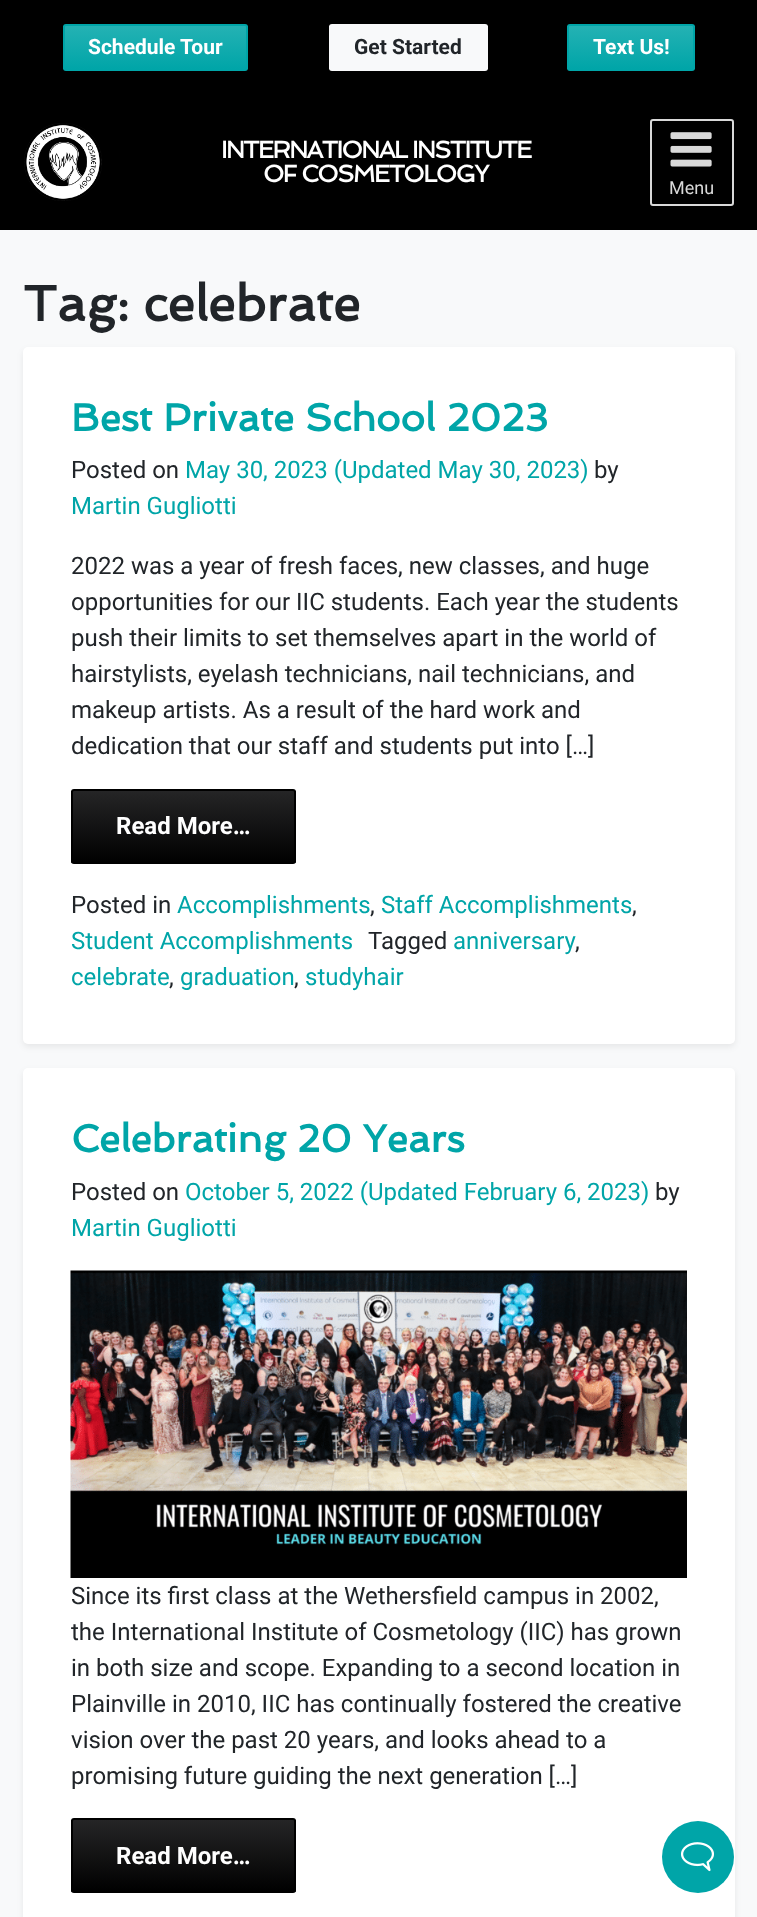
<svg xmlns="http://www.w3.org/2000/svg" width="757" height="1917">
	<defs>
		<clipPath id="clip1"><rect x="63" y="24" width="185" height="47" rx="3" /></clipPath>
		<linearGradient id="g1" gradientUnits="userSpaceOnUse" x1="155" y1="25" x2="155" y2="69"><stop offset="0" stop-color="#25B2B4" /><stop offset="1" stop-color="#00A5A8" /></linearGradient>
		<clipPath id="clip2"><rect x="329" y="24" width="159" height="47" rx="3" /></clipPath>
		<clipPath id="clip3"><rect x="567" y="24" width="128" height="47" rx="3" /></clipPath>
		<linearGradient id="g2" gradientUnits="userSpaceOnUse" x1="631" y1="25" x2="631" y2="69"><stop offset="0" stop-color="#25B2B4" /><stop offset="1" stop-color="#00A5A8" /></linearGradient>
		<clipPath id="clip4"><rect x="71" y="789" width="225" height="75" rx="3" /></clipPath>
		<linearGradient id="g3" gradientUnits="userSpaceOnUse" x1="183" y1="791" x2="183" y2="863"><stop offset="0" stop-color="#252526" /><stop offset="1" stop-color="#000000" /></linearGradient>
		<clipPath id="clip5"><rect x="71" y="1818" width="225" height="75" rx="3" /></clipPath>
		<linearGradient id="g4" gradientUnits="userSpaceOnUse" x1="183" y1="1820" x2="183" y2="1892"><stop offset="0" stop-color="#252526" /><stop offset="1" stop-color="#000000" /></linearGradient>
	</defs>
	<rect width="100%" height="100%" fill="#F8F9FA" />
	<rect x="0" y="0" width="757" height="230" fill="#000000" />
	<g clip-path="url(#clip1)">
		<rect x="63" y="26" width="185" height="43" fill="url(#g1)" />
	</g>
	<rect x="64" y="25" width="183" height="45" rx="2" fill="none" stroke="#00A5A8" stroke-width="2" />
	<text x="88" y="54" font-family="Roboto" font-size="21" font-weight="700" fill="#FFFFFF">Schedule Tour</text>
	<g clip-path="url(#clip2)">
		<rect x="329" y="26" width="159" height="43" fill="#F8F9FA" />
	</g>
	<rect x="330" y="25" width="157" height="45" rx="2" fill="none" stroke="#F8F9FA" stroke-width="2" />
	<text x="354" y="54" font-family="Roboto" font-size="21" font-weight="700" fill="#212529">Get Started</text>
	<g clip-path="url(#clip3)">
		<rect x="567" y="26" width="128" height="43" fill="url(#g2)" />
	</g>
	<rect x="568" y="25" width="126" height="45" rx="2" fill="none" stroke="#00A5A8" stroke-width="2" />
	<text x="593" y="54" font-family="Roboto" font-size="21" font-weight="700" fill="#FFFFFF">Text Us!</text>
	<image x="24" y="123" width="78" height="78" href="assets/img1.png" />
	<g font-family="Spinnaker" font-size="24" font-weight="700" letter-spacing="-1.5" fill="#FFFFFF">
		<text x="221" y="158">INTERNATIONAL INSTITUTE</text>
		<text x="263" y="182">OF COSMETOLOGY</text>
	</g>
	<rect x="651" y="120" width="82" height="85" rx="2" fill="none" stroke="#D9D9D9" stroke-width="2" />
	<image x="670" y="132" width="42" height="35" href="assets/img2.png" />
	<text x="669" y="194" font-family="Roboto" font-size="18" fill="#D9D9D9">Menu</text>
	<text x="23" y="321" font-family="Spinnaker" font-size="50" font-weight="700" fill="#212529">Tag: celebrate</text>
	<rect x="23" y="350" width="712" height="697" rx="5" fill="#000000" fill-opacity="0.07" filter="blur(3px)" />
	<rect x="23" y="347" width="712" height="697" rx="5" fill="#FFFFFF" />
	<text x="71" y="431" font-family="Spinnaker" font-size="38.6" font-weight="700" fill="#00A5A8">Best Private School 2023</text>
	<text x="71" y="478" font-family="Roboto" font-size="24" fill="#212529">Posted on</text>
	<text x="185" y="478" font-family="Roboto" font-size="24" fill="#00A5A8">May 30, 2023 (Updated May 30, 2023)</text>
	<text x="594" y="478" font-family="Roboto" font-size="24" fill="#212529">by</text>
	<text x="71" y="514" font-family="Roboto" font-size="24" fill="#00A5A8">Martin Gugliotti</text>
	<g font-family="Roboto" font-size="24" fill="#212529">
		<text x="71" y="574">2022 was a year of fresh faces, new classes, and huge</text>
		<text x="71" y="610">opportunities for our IIC students. Each year the students</text>
		<text x="71" y="646">push their limits to set themselves apart in the world of</text>
		<text x="71" y="682">hairstylists, eyelash technicians, nail technicians, and</text>
		<text x="71" y="718">makeup artists. As a result of the hard work and</text>
		<text x="71" y="754">dedication that our staff and students put into […]</text>
	</g>
	<g clip-path="url(#clip4)">
		<rect x="71" y="791" width="225" height="72" fill="url(#g3)" />
	</g>
	<rect x="72" y="790" width="223" height="73" rx="2" fill="none" stroke="#000000" stroke-width="2" />
	<text x="116" y="834" font-family="Roboto" font-size="24" font-weight="700" fill="#FFFFFF">Read More…</text>
	<text x="71" y="913" font-family="Roboto" font-size="24" fill="#212529">Posted in</text>
	<text x="177" y="913" font-family="Roboto" font-size="24" fill="#00A5A8">Accomplishments</text>
	<text x="370" y="913" font-family="Roboto" font-size="24" fill="#212529">,</text>
	<text x="381" y="913" font-family="Roboto" font-size="24" fill="#00A5A8">Staff Accomplishments</text>
	<text x="632" y="913" font-family="Roboto" font-size="24" fill="#212529">,</text>
	<text x="71" y="949" font-family="Roboto" font-size="24" fill="#00A5A8">Student Accomplishments</text>
	<text x="368" y="949" font-family="Roboto" font-size="24" fill="#212529">Tagged</text>
	<text x="453" y="949" font-family="Roboto" font-size="24" fill="#00A5A8">anniversary</text>
	<text x="575" y="949" font-family="Roboto" font-size="24" fill="#212529">,</text>
	<text x="71" y="985" font-family="Roboto" font-size="24" fill="#00A5A8">celebrate</text>
	<text x="169" y="985" font-family="Roboto" font-size="24" fill="#212529">,</text>
	<text x="180" y="985" font-family="Roboto" font-size="24" fill="#00A5A8">graduation</text>
	<text x="294" y="985" font-family="Roboto" font-size="24" fill="#212529">,</text>
	<text x="305" y="985" font-family="Roboto" font-size="24" fill="#00A5A8">studyhair</text>
	<rect x="23" y="1071" width="712" height="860" rx="5" fill="#000000" fill-opacity="0.07" filter="blur(3px)" />
	<rect x="23" y="1068" width="712" height="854" rx="5" fill="#FFFFFF" />
	<text x="71" y="1152" font-family="Spinnaker" font-size="38.6" font-weight="700" fill="#00A5A8">Celebrating 20 Years</text>
	<text x="71" y="1200" font-family="Roboto" font-size="24" fill="#212529">Posted on</text>
	<text x="185" y="1200" font-family="Roboto" font-size="24" fill="#00A5A8">October 5, 2022 (Updated February 6, 2023)</text>
	<text x="655" y="1200" font-family="Roboto" font-size="24" fill="#212529">by</text>
	<text x="71" y="1236" font-family="Roboto" font-size="24" fill="#00A5A8">Martin Gugliotti</text>
	<image x="70" y="1270" width="617" height="308" href="assets/img3.png" />
	<g font-family="Roboto" font-size="24" fill="#212529">
		<text x="71" y="1604">Since its first class at the Wethersfield campus in 2002,</text>
		<text x="71" y="1640">the International Institute of Cosmetology (IIC) has grown</text>
		<text x="71" y="1676">in both size and scope. Expanding to a second location in</text>
		<text x="71" y="1712">Plainville in 2010, IIC has continually fostered the creative</text>
		<text x="71" y="1748">vision over the past 20 years, and looks ahead to a</text>
		<text x="71" y="1784">promising future guiding the next generation […]</text>
	</g>
	<g clip-path="url(#clip5)">
		<rect x="71" y="1820" width="225" height="72" fill="url(#g4)" />
	</g>
	<rect x="72" y="1819" width="223" height="73" rx="2" fill="none" stroke="#000000" stroke-width="2" />
	<text x="116" y="1864" font-family="Roboto" font-size="24" font-weight="700" fill="#FFFFFF">Read More…</text>
	<circle cx="698" cy="1857" r="36" fill="#00A5A8" />
	<image x="681" y="1842" width="33" height="30" href="assets/img4.png" />
</svg>
